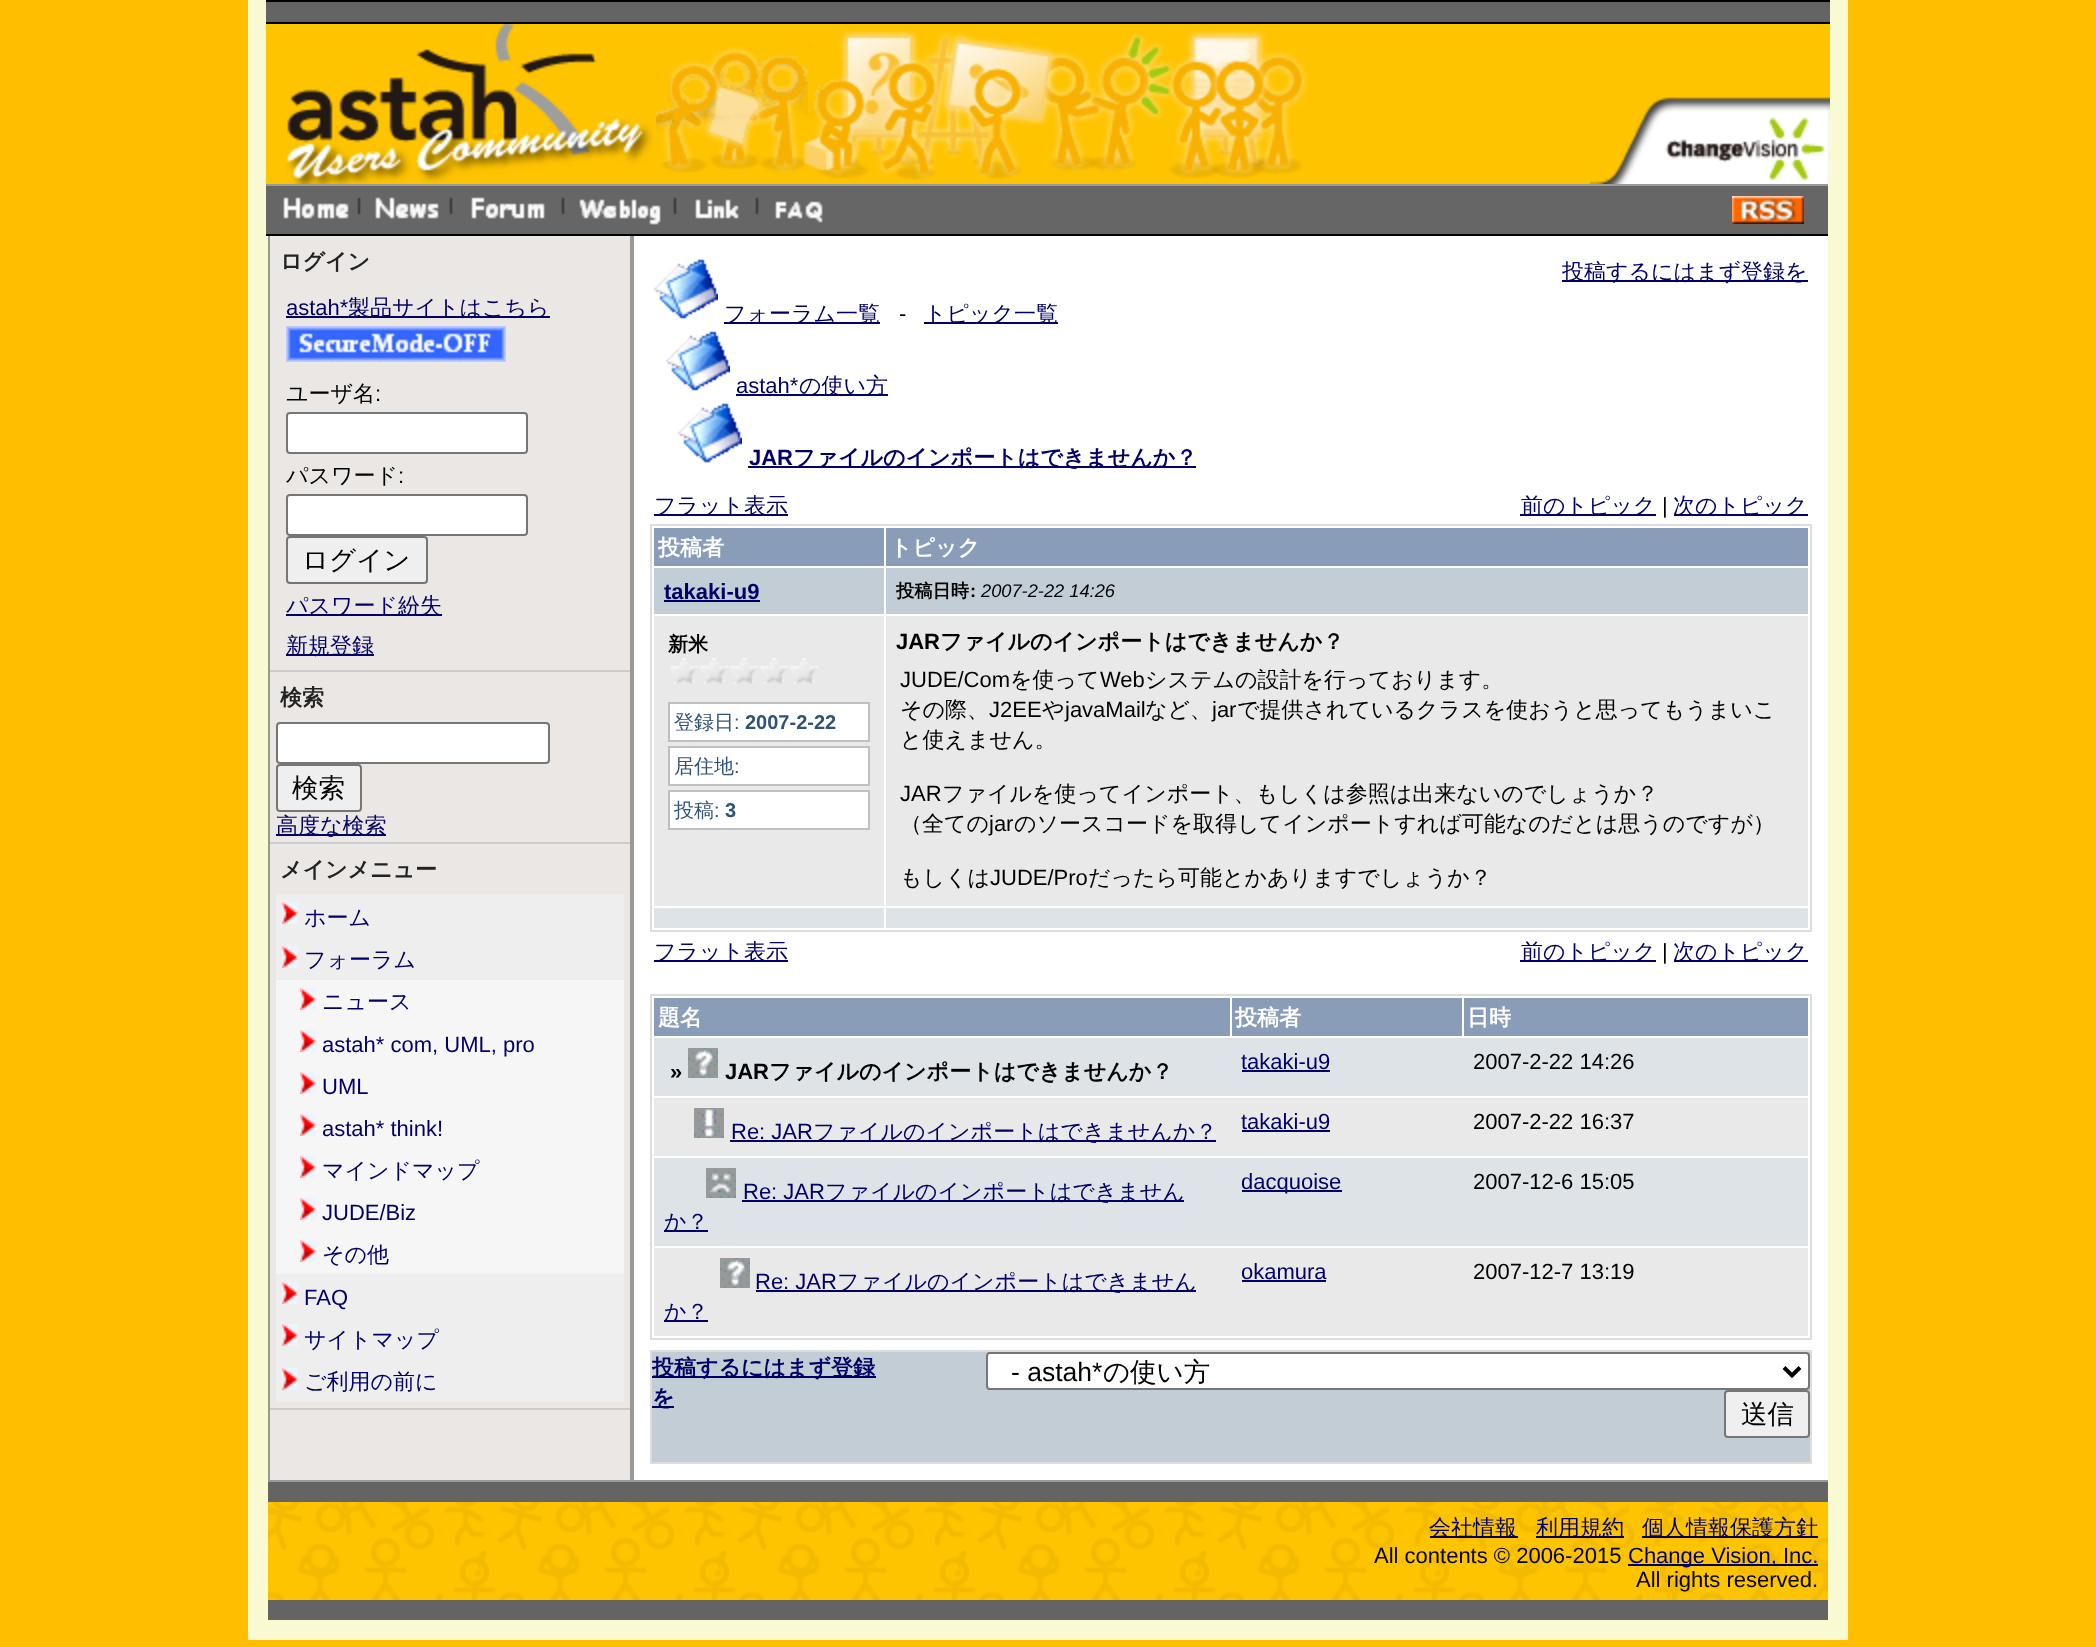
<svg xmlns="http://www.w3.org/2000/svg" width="2096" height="1647">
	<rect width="100%" height="100%" fill="#FFBE00" />
	<rect x="248" y="0" width="1600" height="1640" fill="#FAFAD2" />
	<rect x="266" y="2" width="1564" height="20" fill="#646464" />
	<rect x="266" y="0" width="1564" height="2" fill="#000000" />
	<rect x="266" y="22" width="1564" height="2" fill="#000000" />
	<rect x="266" y="24" width="1564" height="160" fill="#FFC400" />
	<image x="285" y="24" width="368" height="160" href="assets/img1.png" />
	<image x="656" y="46" width="152" height="127" href="assets/img2.png" />
	<image x="808" y="29" width="228" height="151" href="assets/img3.png" />
	<image x="1036" y="32" width="136" height="141" href="assets/img4.png" />
	<image x="1172" y="29" width="136" height="149" href="assets/img5.png" />
	<image x="1589" y="97" width="241" height="87" href="assets/img6.png" />
	<rect x="266" y="186" width="1562" height="48" fill="#666666" />
	<rect x="266" y="184" width="1562" height="2" fill="#999999" />
	<rect x="266" y="234" width="1562" height="2" fill="#000000" />
	<image x="283" y="197" width="66" height="22" href="assets/img7.png" />
	<image x="357" y="197" width="4" height="18" href="assets/img8.png" />
	<image x="375" y="197" width="64" height="22" href="assets/img9.png" />
	<image x="449" y="197" width="4" height="18" href="assets/img8.png" />
	<image x="471" y="197" width="74" height="22" href="assets/img10.png" />
	<image x="561" y="197" width="4" height="18" href="assets/img8.png" />
	<image x="579" y="199" width="82" height="26" href="assets/img11.png" />
	<image x="673" y="197" width="4" height="18" href="assets/img8.png" />
	<image x="695" y="199" width="44" height="20" href="assets/img12.png" />
	<image x="755" y="197" width="4" height="18" href="assets/img8.png" />
	<image x="775" y="201" width="48" height="22" href="assets/img13.png" />
	<image x="1732" y="196" width="72" height="28" href="assets/img14.png" />
	<rect x="270" y="236" width="360" height="1244" fill="#EBE7E4" />
	<rect x="630" y="236" width="2" height="1246" fill="#999999" />
	<rect x="268" y="1480" width="1560" height="2" fill="#999999" />
	<rect x="268" y="236" width="2" height="1246" fill="#999999" />
	<text x="280" y="269" font-family="WenQuanYi Zen Hei" font-size="22" font-weight="700" fill="#222222">ログイン</text>
	<rect x="270" y="670" width="360" height="2" fill="#CCCCCC" />
	<text x="286" y="315" font-family="Liberation Sans" font-size="22" fill="#000066">astah*</text>
	<rect x="286" y="316" width="264" height="2" fill="#000066" />
	<text x="348" y="315" font-family="WenQuanYi Zen Hei" font-size="22" font-weight="500" fill="#000066">製品サイトはこちら</text>
	<image x="286" y="326" width="220" height="36" href="assets/img15.png" />
	<text x="286" y="401" font-family="WenQuanYi Zen Hei" font-size="22" font-weight="500" fill="#000000">ユーザ名</text>
	<text x="375" y="401" font-family="Liberation Sans" font-size="22" fill="#000000">:</text>
	<rect x="287" y="413" width="240" height="40" rx="3" fill="#FFFFFF" stroke="#767676" stroke-width="2" />
	<text x="286" y="483" font-family="WenQuanYi Zen Hei" font-size="22" font-weight="500" fill="#000000">パスワード</text>
	<text x="398" y="483" font-family="Liberation Sans" font-size="22" fill="#000000">:</text>
	<rect x="287" y="495" width="240" height="40" rx="3" fill="#FFFFFF" stroke="#767676" stroke-width="2" />
	<rect x="287" y="537" width="140" height="46" rx="3" fill="#EFEFEF" stroke="#767676" stroke-width="2" />
	<text x="302" y="569" font-family="WenQuanYi Zen Hei" font-size="26.5" font-weight="500" fill="#000000">ログイン</text>
	<rect x="286" y="614" width="156" height="2" fill="#000066" />
	<text x="286" y="613" font-family="WenQuanYi Zen Hei" font-size="22" font-weight="500" fill="#000066">パスワード紛失</text>
	<rect x="286" y="654" width="88" height="2" fill="#000066" />
	<text x="286" y="653" font-family="WenQuanYi Zen Hei" font-size="22" font-weight="500" fill="#000066">新規登録</text>
	<text x="280" y="705" font-family="WenQuanYi Zen Hei" font-size="22" font-weight="700" fill="#222222">検索</text>
	<rect x="270" y="842" width="360" height="2" fill="#CCCCCC" />
	<rect x="277" y="723" width="272" height="40" rx="3" fill="#FFFFFF" stroke="#767676" stroke-width="2" />
	<rect x="277" y="765" width="84" height="46" rx="3" fill="#EFEFEF" stroke="#767676" stroke-width="2" />
	<text x="292" y="797" font-family="WenQuanYi Zen Hei" font-size="26.5" font-weight="500" fill="#000000">検索</text>
	<rect x="276" y="834" width="110" height="2" fill="#000066" />
	<text x="276" y="833" font-family="WenQuanYi Zen Hei" font-size="22" font-weight="500" fill="#000066">高度な検索</text>
	<text x="280" y="877" font-family="WenQuanYi Zen Hei" font-size="22" font-weight="700" fill="#222222">メインメニュー</text>
	<rect x="270" y="1408" width="360" height="2" fill="#CCCCCC" />
	<rect x="276" y="894" width="348" height="86" fill="#EEEEEE" />
	<image x="282" y="902" width="16" height="22" href="assets/img16.png" />
	<text x="304" y="925" font-family="WenQuanYi Zen Hei" font-size="22" font-weight="500" fill="#000066">ホーム</text>
	<image x="282" y="946" width="16" height="22" href="assets/img16.png" />
	<text x="304" y="967" font-family="WenQuanYi Zen Hei" font-size="22" font-weight="500" fill="#000066">フォーラム</text>
	<rect x="276" y="980" width="348" height="294" fill="#F6F6F6" />
	<image x="300" y="988" width="16" height="22" href="assets/img16.png" />
	<text x="322" y="1009" font-family="WenQuanYi Zen Hei" font-size="22" font-weight="500" fill="#000066">ニュース</text>
	<image x="300" y="1030" width="16" height="22" href="assets/img16.png" />
	<text x="322" y="1052" font-family="Liberation Sans" font-size="22" fill="#000066">astah* com, UML, pro</text>
	<image x="300" y="1072" width="16" height="22" href="assets/img16.png" />
	<text x="322" y="1094" font-family="Liberation Sans" font-size="22" fill="#000066">UML</text>
	<image x="300" y="1114" width="16" height="22" href="assets/img16.png" />
	<text x="322" y="1136" font-family="Liberation Sans" font-size="22" fill="#000066">astah* think!</text>
	<image x="300" y="1156" width="16" height="22" href="assets/img16.png" />
	<text x="322" y="1178" font-family="WenQuanYi Zen Hei" font-size="22" font-weight="500" fill="#000066">マインドマップ</text>
	<image x="300" y="1198" width="16" height="22" href="assets/img16.png" />
	<text x="322" y="1220" font-family="Liberation Sans" font-size="22" fill="#000066">JUDE/Biz</text>
	<image x="300" y="1240" width="16" height="22" href="assets/img16.png" />
	<text x="322" y="1262" font-family="WenQuanYi Zen Hei" font-size="22" font-weight="500" fill="#000066">その他</text>
	<rect x="276" y="1274" width="348" height="128" fill="#EEEEEE" />
	<image x="282" y="1282" width="16" height="22" href="assets/img16.png" />
	<text x="304" y="1305" font-family="Liberation Sans" font-size="22" fill="#000066">FAQ</text>
	<image x="282" y="1324" width="16" height="22" href="assets/img16.png" />
	<text x="304" y="1347" font-family="WenQuanYi Zen Hei" font-size="22" font-weight="500" fill="#000066">サイトマップ</text>
	<image x="282" y="1368" width="16" height="22" href="assets/img16.png" />
	<text x="304" y="1389" font-family="WenQuanYi Zen Hei" font-size="22" font-weight="500" fill="#000066">ご利用の前に</text>
	<rect x="634" y="236" width="1194" height="1244" fill="#FFFFFF" />
	<rect x="632" y="236" width="2" height="1246" fill="#999999" />
	<rect x="1562" y="280" width="246" height="2" fill="#000066" />
	<text x="1562" y="279" font-family="WenQuanYi Zen Hei" font-size="22" font-weight="500" fill="#000066">投稿するにはまず登録を</text>
	<image x="654" y="259" width="64" height="60" href="assets/img17.png" />
	<rect x="724" y="322" width="156" height="2" fill="#000066" />
	<text x="724" y="321" font-family="WenQuanYi Zen Hei" font-size="22" font-weight="500" fill="#000066">フォーラム一覧</text>
	<text x="899" y="321" font-family="Liberation Sans" font-size="22" fill="#000000">-</text>
	<rect x="924" y="322" width="134" height="2" fill="#000066" />
	<text x="924" y="321" font-family="WenQuanYi Zen Hei" font-size="22" font-weight="500" fill="#000066">トピック一覧</text>
	<image x="666" y="331" width="64" height="60" href="assets/img17.png" />
	<text x="736" y="393" font-family="Liberation Sans" font-size="22" fill="#000066">astah*</text>
	<rect x="736" y="394" width="152" height="2" fill="#000066" />
	<text x="799" y="393" font-family="WenQuanYi Zen Hei" font-size="22" font-weight="500" fill="#000066">の使い方</text>
	<image x="678" y="403" width="64" height="60" href="assets/img17.png" />
	<text x="749" y="465" font-family="Liberation Sans" font-size="22" font-weight="700" fill="#000066">JAR</text>
	<rect x="748" y="466" width="448" height="2" fill="#000066" />
	<text x="793" y="465" font-family="WenQuanYi Zen Hei" font-size="22" font-weight="700" fill="#000066">ファイルのインポートはできませんか？</text>
	<rect x="654" y="514" width="134" height="2" fill="#000066" />
	<text x="654" y="513" font-family="WenQuanYi Zen Hei" font-size="22" font-weight="500" fill="#000066">フラット表示</text>
	<rect x="1520" y="514" width="136" height="2" fill="#000066" />
	<text x="1521" y="513" font-family="WenQuanYi Zen Hei" font-size="22" font-weight="500" fill="#000066">前のトピック</text>
	<text x="1662" y="513" font-family="Liberation Sans" font-size="22" fill="#000000">|</text>
	<rect x="1674" y="514" width="134" height="2" fill="#000066" />
	<text x="1673" y="513" font-family="WenQuanYi Zen Hei" font-size="22" font-weight="500" fill="#000066">次のトピック</text>
	<rect x="651" y="525" width="1160" height="406" fill="none" stroke="#DDDDDD" stroke-width="2" />
	<rect x="654" y="528" width="230" height="38" fill="#899DB8" />
	<text x="658" y="555" font-family="WenQuanYi Zen Hei" font-size="22" font-weight="700" fill="#FFFFFF">投稿者</text>
	<rect x="886" y="528" width="922" height="38" fill="#899DB8" />
	<text x="890" y="555" font-family="WenQuanYi Zen Hei" font-size="22" font-weight="700" fill="#FFFFFF">トピック</text>
	<rect x="654" y="568" width="230" height="46" fill="#C2CDD6" />
	<text x="664" y="599" font-family="Liberation Sans" font-size="22" font-weight="700" fill="#000066">takaki-u9</text>
	<rect x="664" y="600" width="96" height="2" fill="#000066" />
	<rect x="886" y="568" width="922" height="46" fill="#C2CDD6" />
	<text x="896" y="597" font-family="WenQuanYi Zen Hei" font-size="18.25" font-weight="700" fill="#000000">投稿日時</text>
	<text x="970" y="597" font-family="Liberation Sans" font-size="18.25" font-weight="700" fill="#000000">:</text>
	<text x="981" y="597" font-family="Liberation Sans" font-size="18.25" font-style="italic" fill="#000000">2007-2-22 14:26</text>
	<rect x="654" y="616" width="230" height="290" fill="#E9E9E9" />
	<text x="668" y="651" font-family="WenQuanYi Zen Hei" font-size="20" font-weight="700" fill="#000000">新米</text>
	<image x="670" y="658" width="148" height="26" href="assets/img18.png" />
	<rect x="669" y="703" width="200" height="38" fill="#FFFFFF" stroke="#C0C0C0" stroke-width="2" />
	<text x="674" y="729" font-family="WenQuanYi Zen Hei" font-size="20" font-weight="500" fill="#2F5376">登録日</text>
	<text x="734" y="729" font-family="Liberation Sans" font-size="20" fill="#2F5376">:</text>
	<text x="745" y="729" font-family="Liberation Sans" font-size="20" font-weight="700" fill="#2F5376">2007-2-22</text>
	<rect x="669" y="747" width="200" height="38" fill="#FFFFFF" stroke="#C0C0C0" stroke-width="2" />
	<text x="674" y="773" font-family="WenQuanYi Zen Hei" font-size="20" font-weight="500" fill="#2F5376">居住地</text>
	<text x="734" y="773" font-family="Liberation Sans" font-size="20" fill="#2F5376">:</text>
	<rect x="669" y="791" width="200" height="38" fill="#FFFFFF" stroke="#C0C0C0" stroke-width="2" />
	<text x="674" y="817" font-family="WenQuanYi Zen Hei" font-size="20" font-weight="500" fill="#2F5376">投稿</text>
	<text x="714" y="817" font-family="Liberation Sans" font-size="20" fill="#2F5376">:</text>
	<text x="725" y="817" font-family="Liberation Sans" font-size="20" font-weight="700" fill="#2F5376">3</text>
	<rect x="886" y="616" width="922" height="290" fill="#E9E9E9" />
	<text x="896" y="649" font-family="Liberation Sans" font-size="22" font-weight="700" fill="#000000">JAR</text>
	<text x="940" y="649" font-family="WenQuanYi Zen Hei" font-size="22" font-weight="700" fill="#000000">ファイルのインポートはできませんか？</text>
	<text x="900" y="687" font-family="Liberation Sans" font-size="22" fill="#000000">JUDE/Com</text>
	<text x="1010" y="687" font-family="WenQuanYi Zen Hei" font-size="22" font-weight="500" fill="#000000">を使って</text>
	<text x="1100" y="687" font-family="Liberation Sans" font-size="22" fill="#000000">Web</text>
	<g font-family="WenQuanYi Zen Hei" font-size="22" font-weight="500" fill="#000000">
		<text x="1145" y="687">システムの設計を行っております。</text>
		<text x="900" y="717">その際、</text>
	</g>
	<text x="989" y="717" font-family="Liberation Sans" font-size="22" fill="#000000">J2EE</text>
	<text x="1042" y="717" font-family="WenQuanYi Zen Hei" font-size="22" font-weight="500" fill="#000000">や</text>
	<text x="1065" y="717" font-family="Liberation Sans" font-size="22" fill="#000000">javaMail</text>
	<text x="1145" y="717" font-family="WenQuanYi Zen Hei" font-size="22" font-weight="500" fill="#000000">など、</text>
	<text x="1212" y="717" font-family="Liberation Sans" font-size="22" fill="#000000">jar</text>
	<g font-family="WenQuanYi Zen Hei" font-size="22" font-weight="500" fill="#000000">
		<text x="1237" y="717">で提供されているクラスを使おうと思ってもうまいこ</text>
		<text x="900" y="747">と使えません。</text>
	</g>
	<text x="900" y="801" font-family="Liberation Sans" font-size="22" fill="#000000">JAR</text>
	<g font-family="WenQuanYi Zen Hei" font-size="22" font-weight="500" fill="#000000">
		<text x="942" y="801">ファイルを使ってインポート、もしくは参照は出来ないのでしょうか？</text>
		<text x="900" y="831">（全ての</text>
	</g>
	<text x="989" y="831" font-family="Liberation Sans" font-size="22" fill="#000000">jar</text>
	<g font-family="WenQuanYi Zen Hei" font-size="22" font-weight="500" fill="#000000">
		<text x="1014" y="831">のソースコードを取得してインポートすれば可能なのだとは思うのですが）</text>
		<text x="900" y="885">もしくは</text>
	</g>
	<text x="990" y="885" font-family="Liberation Sans" font-size="22" fill="#000000">JUDE/Pro</text>
	<text x="1088" y="885" font-family="WenQuanYi Zen Hei" font-size="22" font-weight="500" fill="#000000">だったら可能とかありますでしょうか？</text>
	<rect x="654" y="908" width="230" height="20" fill="#DEE3E7" />
	<rect x="886" y="908" width="922" height="20" fill="#DEE3E7" />
	<rect x="654" y="960" width="134" height="2" fill="#000066" />
	<text x="654" y="959" font-family="WenQuanYi Zen Hei" font-size="22" font-weight="500" fill="#000066">フラット表示</text>
	<rect x="1520" y="960" width="136" height="2" fill="#000066" />
	<text x="1521" y="959" font-family="WenQuanYi Zen Hei" font-size="22" font-weight="500" fill="#000066">前のトピック</text>
	<text x="1662" y="959" font-family="Liberation Sans" font-size="22" fill="#000000">|</text>
	<rect x="1674" y="960" width="134" height="2" fill="#000066" />
	<text x="1673" y="959" font-family="WenQuanYi Zen Hei" font-size="22" font-weight="500" fill="#000066">次のトピック</text>
	<rect x="651" y="995" width="1160" height="344" fill="none" stroke="#DDDDDD" stroke-width="2" />
	<rect x="654" y="998" width="576" height="38" fill="#899DB8" />
	<text x="658" y="1025" font-family="WenQuanYi Zen Hei" font-size="22" font-weight="700" fill="#FFFFFF">題名</text>
	<rect x="1232" y="998" width="230" height="38" fill="#899DB8" />
	<text x="1235" y="1025" font-family="WenQuanYi Zen Hei" font-size="22" font-weight="700" fill="#FFFFFF">投稿者</text>
	<rect x="1464" y="998" width="344" height="38" fill="#899DB8" />
	<text x="1467" y="1025" font-family="WenQuanYi Zen Hei" font-size="22" font-weight="700" fill="#FFFFFF">日時</text>
	<rect x="654" y="1038" width="1154" height="58" fill="#DEE3E7" />
	<text x="670" y="1079" font-family="Liberation Sans" font-size="22" font-weight="700" fill="#000000">»</text>
	<image x="688" y="1048" width="30" height="30" href="assets/img19.png" />
	<text x="725" y="1079" font-family="Liberation Sans" font-size="22" font-weight="700" fill="#000000">JAR</text>
	<text x="769" y="1079" font-family="WenQuanYi Zen Hei" font-size="22" font-weight="700" fill="#000000">ファイルのインポートはできませんか？</text>
	<text x="1241" y="1069" font-family="Liberation Sans" font-size="22" fill="#000066">takaki-u9</text>
	<rect x="1242" y="1070" width="88" height="2" fill="#000066" />
	<text x="1473" y="1069" font-family="Liberation Sans" font-size="22" fill="#000000">2007-2-22 14:26</text>
	<rect x="654" y="1098" width="1154" height="58" fill="#E9E9E9" />
	<image x="694" y="1108" width="30" height="30" href="assets/img20.png" />
	<text x="731" y="1139" font-family="Liberation Sans" font-size="22" fill="#000066">Re: JAR</text>
	<rect x="730" y="1140" width="486" height="2" fill="#000066" />
	<text x="813" y="1139" font-family="WenQuanYi Zen Hei" font-size="22" font-weight="500" fill="#000066">ファイルのインポートはできませんか？</text>
	<text x="1241" y="1129" font-family="Liberation Sans" font-size="22" fill="#000066">takaki-u9</text>
	<rect x="1242" y="1130" width="88" height="2" fill="#000066" />
	<text x="1473" y="1129" font-family="Liberation Sans" font-size="22" fill="#000000">2007-2-22 16:37</text>
	<rect x="654" y="1158" width="1154" height="88" fill="#DEE3E7" />
	<image x="706" y="1168" width="30" height="30" href="assets/img21.png" />
	<text x="743" y="1199" font-family="Liberation Sans" font-size="22" fill="#000066">Re: JAR</text>
	<rect x="742" y="1200" width="442" height="2" fill="#000066" />
	<text x="825" y="1199" font-family="WenQuanYi Zen Hei" font-size="22" font-weight="500" fill="#000066">ファイルのインポートはできません</text>
	<rect x="664" y="1230" width="44" height="2" fill="#000066" />
	<text x="664" y="1229" font-family="WenQuanYi Zen Hei" font-size="22" font-weight="500" fill="#000066">か？</text>
	<rect x="1242" y="1190" width="100" height="2" fill="#000066" />
	<text x="1241" y="1189" font-family="Liberation Sans" font-size="22" fill="#000066">dacquoise</text>
	<text x="1473" y="1189" font-family="Liberation Sans" font-size="22" fill="#000000">2007-12-6 15:05</text>
	<rect x="654" y="1248" width="1154" height="88" fill="#E9E9E9" />
	<image x="720" y="1258" width="30" height="30" href="assets/img19.png" />
	<text x="755" y="1289" font-family="Liberation Sans" font-size="22" fill="#000066">Re: JAR</text>
	<rect x="756" y="1290" width="440" height="2" fill="#000066" />
	<text x="837" y="1289" font-family="WenQuanYi Zen Hei" font-size="22" font-weight="500" fill="#000066">ファイルのインポートはできません</text>
	<rect x="664" y="1320" width="44" height="2" fill="#000066" />
	<text x="664" y="1319" font-family="WenQuanYi Zen Hei" font-size="22" font-weight="500" fill="#000066">か？</text>
	<text x="1241" y="1279" font-family="Liberation Sans" font-size="22" fill="#000066">okamura</text>
	<rect x="1242" y="1280" width="84" height="2" fill="#000066" />
	<text x="1473" y="1279" font-family="Liberation Sans" font-size="22" fill="#000000">2007-12-7 13:19</text>
	<rect x="651" y="1351" width="1160" height="112" fill="none" stroke="#DDDDDD" stroke-width="2" />
	<rect x="652" y="1352" width="1158" height="110" fill="#C2CDD6" />
	<rect x="652" y="1376" width="224" height="2" fill="#000066" />
	<text x="652" y="1375" font-family="WenQuanYi Zen Hei" font-size="22" font-weight="700" fill="#000066">投稿するにはまず登録</text>
	<rect x="652" y="1406" width="22" height="2" fill="#000066" />
	<text x="652" y="1405" font-family="WenQuanYi Zen Hei" font-size="22" font-weight="700" fill="#000066">を</text>
	<rect x="987" y="1353" width="822" height="36" rx="3" fill="#FFFFFF" stroke="#767676" stroke-width="2" />
	<path d="M1784 1367.5L1792 1375.5L1800 1367.5" fill="none" stroke="#000000" stroke-width="4" />
	<text x="1011" y="1381" font-family="Liberation Sans" font-size="26.5" fill="#000000">- astah*</text>
	<text x="1103" y="1381" font-family="WenQuanYi Zen Hei" font-size="26.5" font-weight="500" fill="#000000">の使い方</text>
	<rect x="1725" y="1391" width="84" height="46" rx="3" fill="#EFEFEF" stroke="#767676" stroke-width="2" />
	<text x="1741" y="1423" font-family="WenQuanYi Zen Hei" font-size="26.5" font-weight="500" fill="#000000">送信</text>
	<rect x="268" y="1482" width="1560" height="20" fill="#646464" />
	<image x="268" y="1502" width="1560" height="98" href="assets/img22.png" />
	<rect x="1430" y="1536" width="88" height="2" fill="#000066" />
	<text x="1429" y="1535" font-family="WenQuanYi Zen Hei" font-size="22" font-weight="500" fill="#000066">会社情報</text>
	<rect x="1536" y="1536" width="88" height="2" fill="#000066" />
	<text x="1536" y="1535" font-family="WenQuanYi Zen Hei" font-size="22" font-weight="500" fill="#000066">利用規約</text>
	<rect x="1642" y="1536" width="176" height="2" fill="#000066" />
	<text x="1642" y="1535" font-family="WenQuanYi Zen Hei" font-size="22" font-weight="500" fill="#000066">個人情報保護方針</text>
	<text x="1374" y="1563" font-family="Liberation Sans" font-size="22" fill="#000000">All contents © 2006-2015</text>
	<rect x="1628" y="1564" width="190" height="2" fill="#000066" />
	<text x="1628" y="1563" font-family="Liberation Sans" font-size="22" fill="#000066">Change Vision, Inc.</text>
	<text x="1636" y="1587" font-family="Liberation Sans" font-size="22" fill="#000000">All rights reserved.</text>
	<rect x="268" y="1600" width="1560" height="20" fill="#646464" />
</svg>
